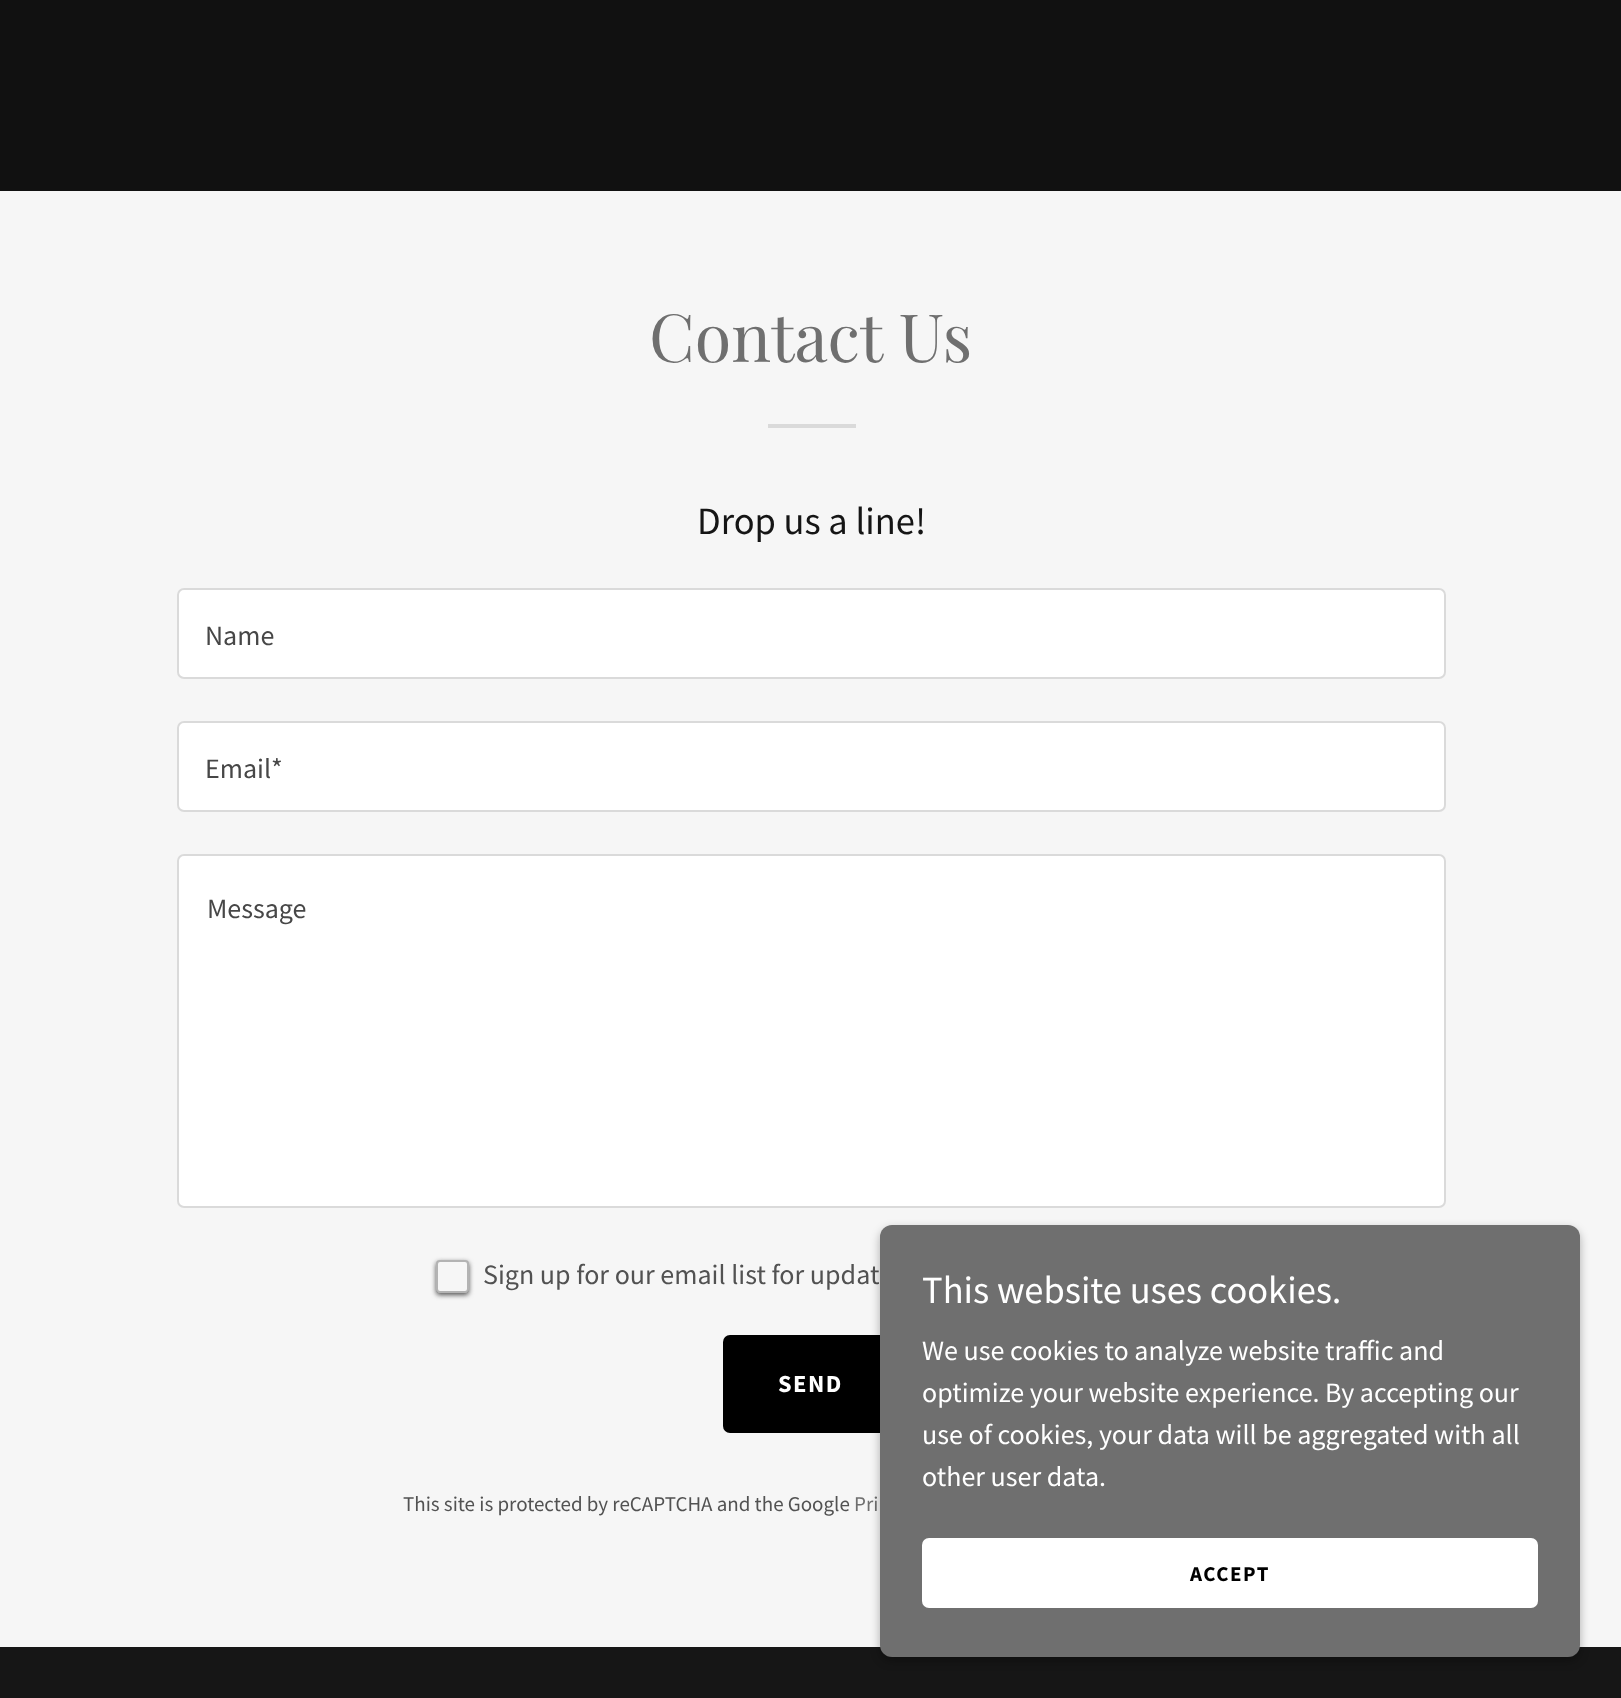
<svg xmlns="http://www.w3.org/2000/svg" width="1621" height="1698">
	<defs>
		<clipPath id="clip1"><path d="M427 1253H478V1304H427ZM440 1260H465C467 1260 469 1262 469 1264V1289C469 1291 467 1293 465 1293H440C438 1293 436 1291 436 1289V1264C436 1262 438 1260 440 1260Z" clip-rule="evenodd" /></clipPath>
	</defs>
	<rect width="100%" height="100%" fill="#161616" />
	<rect x="0" y="0" width="1621" height="191" fill="#111111" />
	<rect x="0" y="191" width="1621" height="1456" fill="#F6F6F6" />
	<text x="649" y="362" font-family="Playfair Display" font-size="66.5" fill="#6F6F6F">Contact Us</text>
	<rect x="768" y="424" width="88" height="4" fill="#DADADA" />
	<text x="697" y="534" font-family="Source Sans Pro" font-size="38.5" fill="#151515">Drop us a line!</text>
	<rect x="178" y="589" width="1267" height="89" rx="6" fill="#FFFFFF" stroke="#DADADA" stroke-width="2" />
	<text x="205" y="645" font-family="Source Sans Pro" font-size="28" fill="#474747">Name</text>
	<rect x="178" y="722" width="1267" height="89" rx="6" fill="#FFFFFF" stroke="#DADADA" stroke-width="2" />
	<text x="205" y="778" font-family="Source Sans Pro" font-size="28" fill="#474747">Email*</text>
	<rect x="178" y="855" width="1267" height="352" rx="6" fill="#FFFFFF" stroke="#DADADA" stroke-width="2" />
	<text x="207" y="918" font-family="Source Sans Pro" font-size="28" fill="#474747">Message</text>
	<g clip-path="url(#clip1)">
		<rect x="436" y="1262" width="33" height="33" rx="4" fill="#525252" filter="blur(2.5px)" />
	</g>
	<rect x="437" y="1261" width="31" height="31" rx="3" fill="none" stroke="#6F6F6F" stroke-opacity="0.5" stroke-width="2" />
	<text x="483" y="1284" font-family="Source Sans Pro" font-size="28" fill="#525252">Sign up for our email list for updat</text>
	<rect x="723" y="1335" width="177" height="98" rx="7" fill="#000000" />
	<text x="778" y="1392" font-family="Source Sans Pro" font-size="24.5" font-weight="700" letter-spacing="1.5" fill="#FFFFFF">SEND</text>
	<text x="403" y="1511" font-family="Source Sans Pro" font-size="21" fill="#525252">This site is protected by reCAPTCHA and the Google</text>
	<text x="854" y="1511" font-family="Source Sans Pro" font-size="21" fill="#6F6F6F">Pri</text>
	<rect x="880" y="1229" width="700" height="432" rx="12" fill="#000000" fill-opacity="0.3" filter="blur(5px)" />
	<rect x="880" y="1225" width="700" height="432" rx="12" fill="#6F6F6F" />
	<text x="922" y="1303" font-family="Source Sans Pro" font-size="38.5" fill="#FFFFFF">This website uses cookies.</text>
	<g font-family="Source Sans Pro" font-size="28" fill="#FFFFFF">
		<text x="922" y="1360">We use cookies to analyze website traffic and</text>
		<text x="922" y="1402">optimize your website experience. By accepting our</text>
		<text x="922" y="1444">use of cookies, your data will be aggregated with all</text>
		<text x="922" y="1486">other user data.</text>
	</g>
	<rect x="922" y="1538" width="616" height="70" rx="7" fill="#FFFFFF" />
	<text x="1190" y="1581" font-family="Source Sans Pro" font-size="21" font-weight="700" letter-spacing="1.5" fill="#000000">ACCEPT</text>
</svg>
